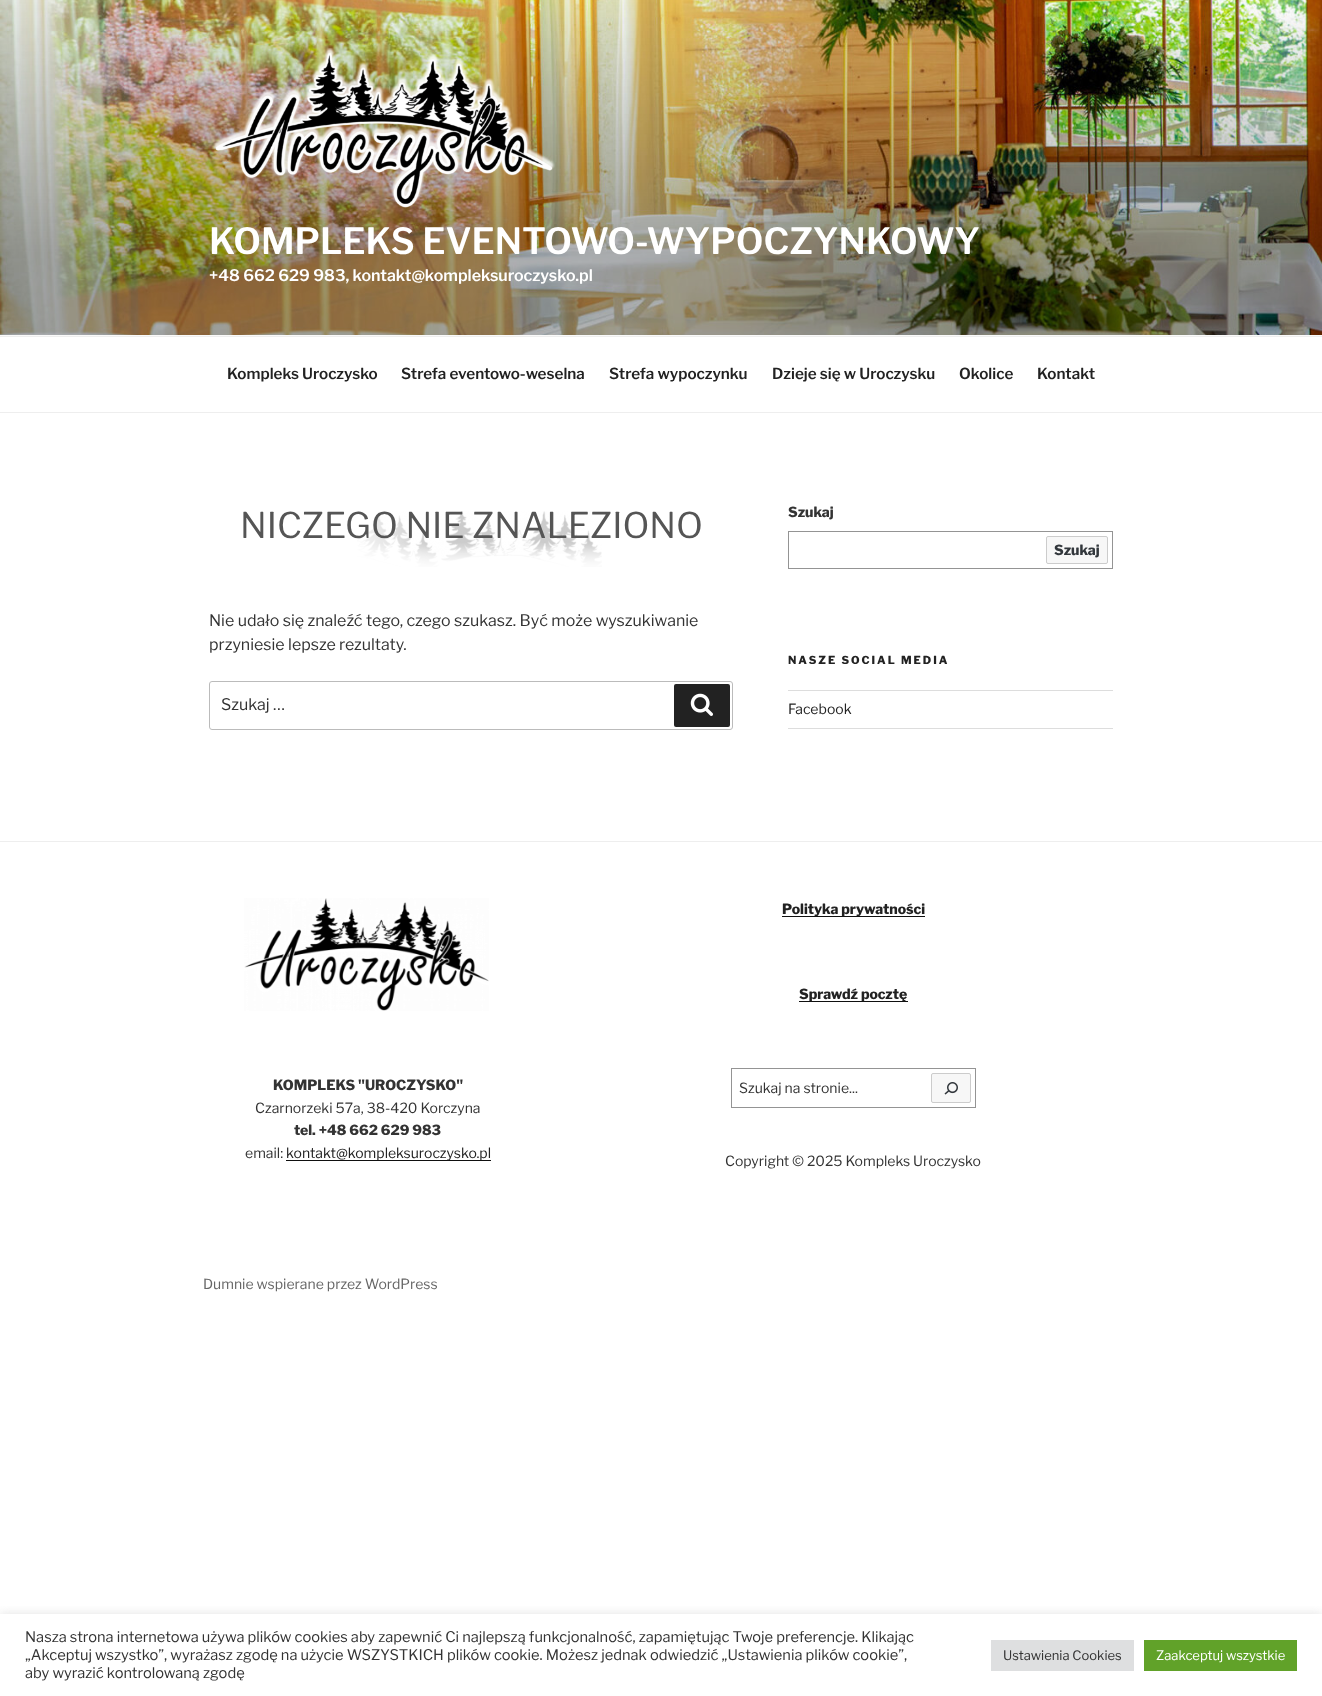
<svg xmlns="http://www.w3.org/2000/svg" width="1322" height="1696">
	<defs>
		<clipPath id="clip1"><rect x="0" y="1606" width="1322" height="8" /></clipPath>
	</defs>
	<rect width="100%" height="100%" fill="#FFFFFF" />
	<rect x="0" y="335" width="1322" height="1" fill="#FAFAFA" />
	<image x="0" y="0" width="1322" height="335" href="assets/img1.png" />
	<image x="213" y="48" width="342" height="160" href="assets/img2.png" />
	<text x="209" y="254" font-family="'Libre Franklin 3'" font-size="36" font-weight="100" fill="#FFFFFF">KOMPLEKS EVENTOWO-WYPOCZYNKOWY</text>
	<text x="209" y="281" font-family="'Libre Franklin 3'" font-size="16" font-weight="100" fill="#FFFFFF">+48 662 629 983, kontakt@kompleksuroczysko.pl</text>
	<rect x="0" y="336" width="1322" height="1" fill="#EEEEEE" />
	<rect x="0" y="412" width="1322" height="1" fill="#EEEEEE" />
	<g font-family="'Libre Franklin 3'" font-size="15.25" font-weight="100" fill="#222222">
		<text x="227" y="379">Kompleks Uroczysko</text>
		<text x="401" y="379">Strefa eventowo-weselna</text>
		<text x="609" y="379">Strefa wypoczynku</text>
		<text x="772" y="379">Dzieje się w Uroczysku</text>
		<text x="959" y="379">Okolice</text>
		<text x="1037" y="379">Kontakt</text>
	</g>
	<image x="357" y="511" width="245" height="56" href="assets/img3.png" />
	<text x="240" y="538" font-family="Libre Franklin" font-size="35.25" font-weight="100" fill="#555555">NICZEGO NIE ZNALEZIONO</text>
	<g font-family="Libre Franklin" font-size="16" font-weight="100" fill="#333333">
		<text x="209" y="626">Nie udało się znaleźć tego, czego szukasz. Być może wyszukiwanie</text>
		<text x="209" y="650">przyniesie lepsze rezultaty.</text>
	</g>
	<rect x="209.5" y="681.5" width="523" height="48" rx="2.5" fill="none" stroke="#BBBBBB" />
	<text x="221" y="710" font-family="Libre Franklin" font-size="16" font-weight="100" fill="#333333">Szukaj …</text>
	<rect x="674" y="684" width="56" height="43" rx="2" fill="#222222" />
	<image x="690" y="693" width="23" height="23" href="assets/img4.png" />
	<text x="788" y="517" font-family="'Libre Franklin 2'" font-size="14" font-weight="100" fill="#333333">Szukaj</text>
	<rect x="788.5" y="531.5" width="324" height="37" fill="none" stroke="#949494" />
	<rect x="1046.5" y="536.5" width="61" height="27" rx="1.5" fill="#F7F7F7" stroke="#CCCCCC" />
	<text x="1054" y="555" font-family="'Libre Franklin 2'" font-size="14" font-weight="100" fill="#32373C">Szukaj</text>
	<text x="788" y="664" font-family="'Libre Franklin 2'" font-size="11" font-weight="100" letter-spacing="2" fill="#222222">NASZE SOCIAL MEDIA</text>
	<rect x="788" y="690" width="325" height="1" fill="#DDDDDD" />
	<rect x="788" y="728" width="325" height="1" fill="#DDDDDD" />
	<text x="788" y="714" font-family="Libre Franklin" font-size="14" font-weight="100" fill="#222222">Facebook</text>
	<rect x="0" y="841" width="1322" height="1" fill="#EEEEEE" />
	<image x="244" y="898" width="245" height="113" href="assets/img5.png" />
	<text x="273" y="1090" font-family="'Libre Franklin 2'" font-size="14" font-weight="100" fill="#333333">KOMPLEKS "UROCZYSKO"</text>
	<text x="255" y="1113" font-family="Libre Franklin" font-size="14" font-weight="100" fill="#333333">Czarnorzeki 57a, 38-420 Korczyna</text>
	<text x="294" y="1135" font-family="'Libre Franklin 2'" font-size="14" font-weight="100" fill="#333333">tel. +48 662 629 983</text>
	<text x="245" y="1158" font-family="Libre Franklin" font-size="14" font-weight="100" fill="#333333">email:</text>
	<rect x="286" y="1160" width="205" height="1" fill="#0F0F0F" />
	<text x="286" y="1158" font-family="Libre Franklin" font-size="14" font-weight="100" fill="#222222">kontakt@kompleksuroczysko.pl</text>
	<rect x="782" y="916" width="143" height="1" fill="#0F0F0F" />
	<text x="782" y="914" font-family="'Libre Franklin 2'" font-size="14" font-weight="100" fill="#222222">Polityka prywatności</text>
	<rect x="799" y="1001" width="109" height="1" fill="#0F0F0F" />
	<text x="799" y="999" font-family="'Libre Franklin 2'" font-size="14" font-weight="100" fill="#222222">Sprawdź pocztę</text>
	<rect x="731.5" y="1068.5" width="244" height="39" fill="none" stroke="#949494" />
	<text x="739" y="1093" font-family="Libre Franklin" font-size="14" font-weight="100" fill="#333333">Szukaj na stronie...</text>
	<rect x="931.5" y="1073.5" width="39" height="29" rx="1.5" fill="#F7F7F7" stroke="#CCCCCC" />
	<image x="944" y="1082" width="14" height="13" href="assets/img6.png" />
	<text x="725" y="1166" font-family="Libre Franklin" font-size="14" font-weight="100" fill="#333333">Copyright © 2025 Kompleks Uroczysko</text>
	<text x="203" y="1289" font-family="Libre Franklin" font-size="14" font-weight="100" fill="#666666">Dumnie wspierane przez WordPress</text>
	<g clip-path="url(#clip1)">
		<rect x="0" y="1613" width="1322" height="82" fill="#ACABAB" fill-opacity="0.3" filter="blur(5px)" />
	</g>
	<g font-family="Libre Franklin" font-size="14.67" font-weight="100" fill="#333333">
		<text x="25" y="1642">Nasza strona internetowa używa plików cookies aby zapewnić Ci najlepszą funkcjonalność, zapamiętując Twoje preferencje. Klikając</text>
		<text x="25" y="1660">„Akceptuj wszystko”, wyrażasz zgodę na użycie WSZYSTKICH plików cookie. Możesz jednak odwiedzić „Ustawienia plików cookie”,</text>
		<text x="25" y="1678">aby wyrazić kontrolowaną zgodę</text>
	</g>
	<rect x="991" y="1640" width="143" height="31" fill="#DEDFE0" />
	<text x="1003" y="1660" font-family="Libre Franklin" font-size="13" font-weight="100" fill="#333333">Ustawienia Cookies</text>
	<rect x="1144" y="1640" width="153" height="31" fill="#61A229" />
	<text x="1156" y="1660" font-family="Libre Franklin" font-size="13" font-weight="100" fill="#FFFFFF">Zaakceptuj wszystkie</text>
</svg>
